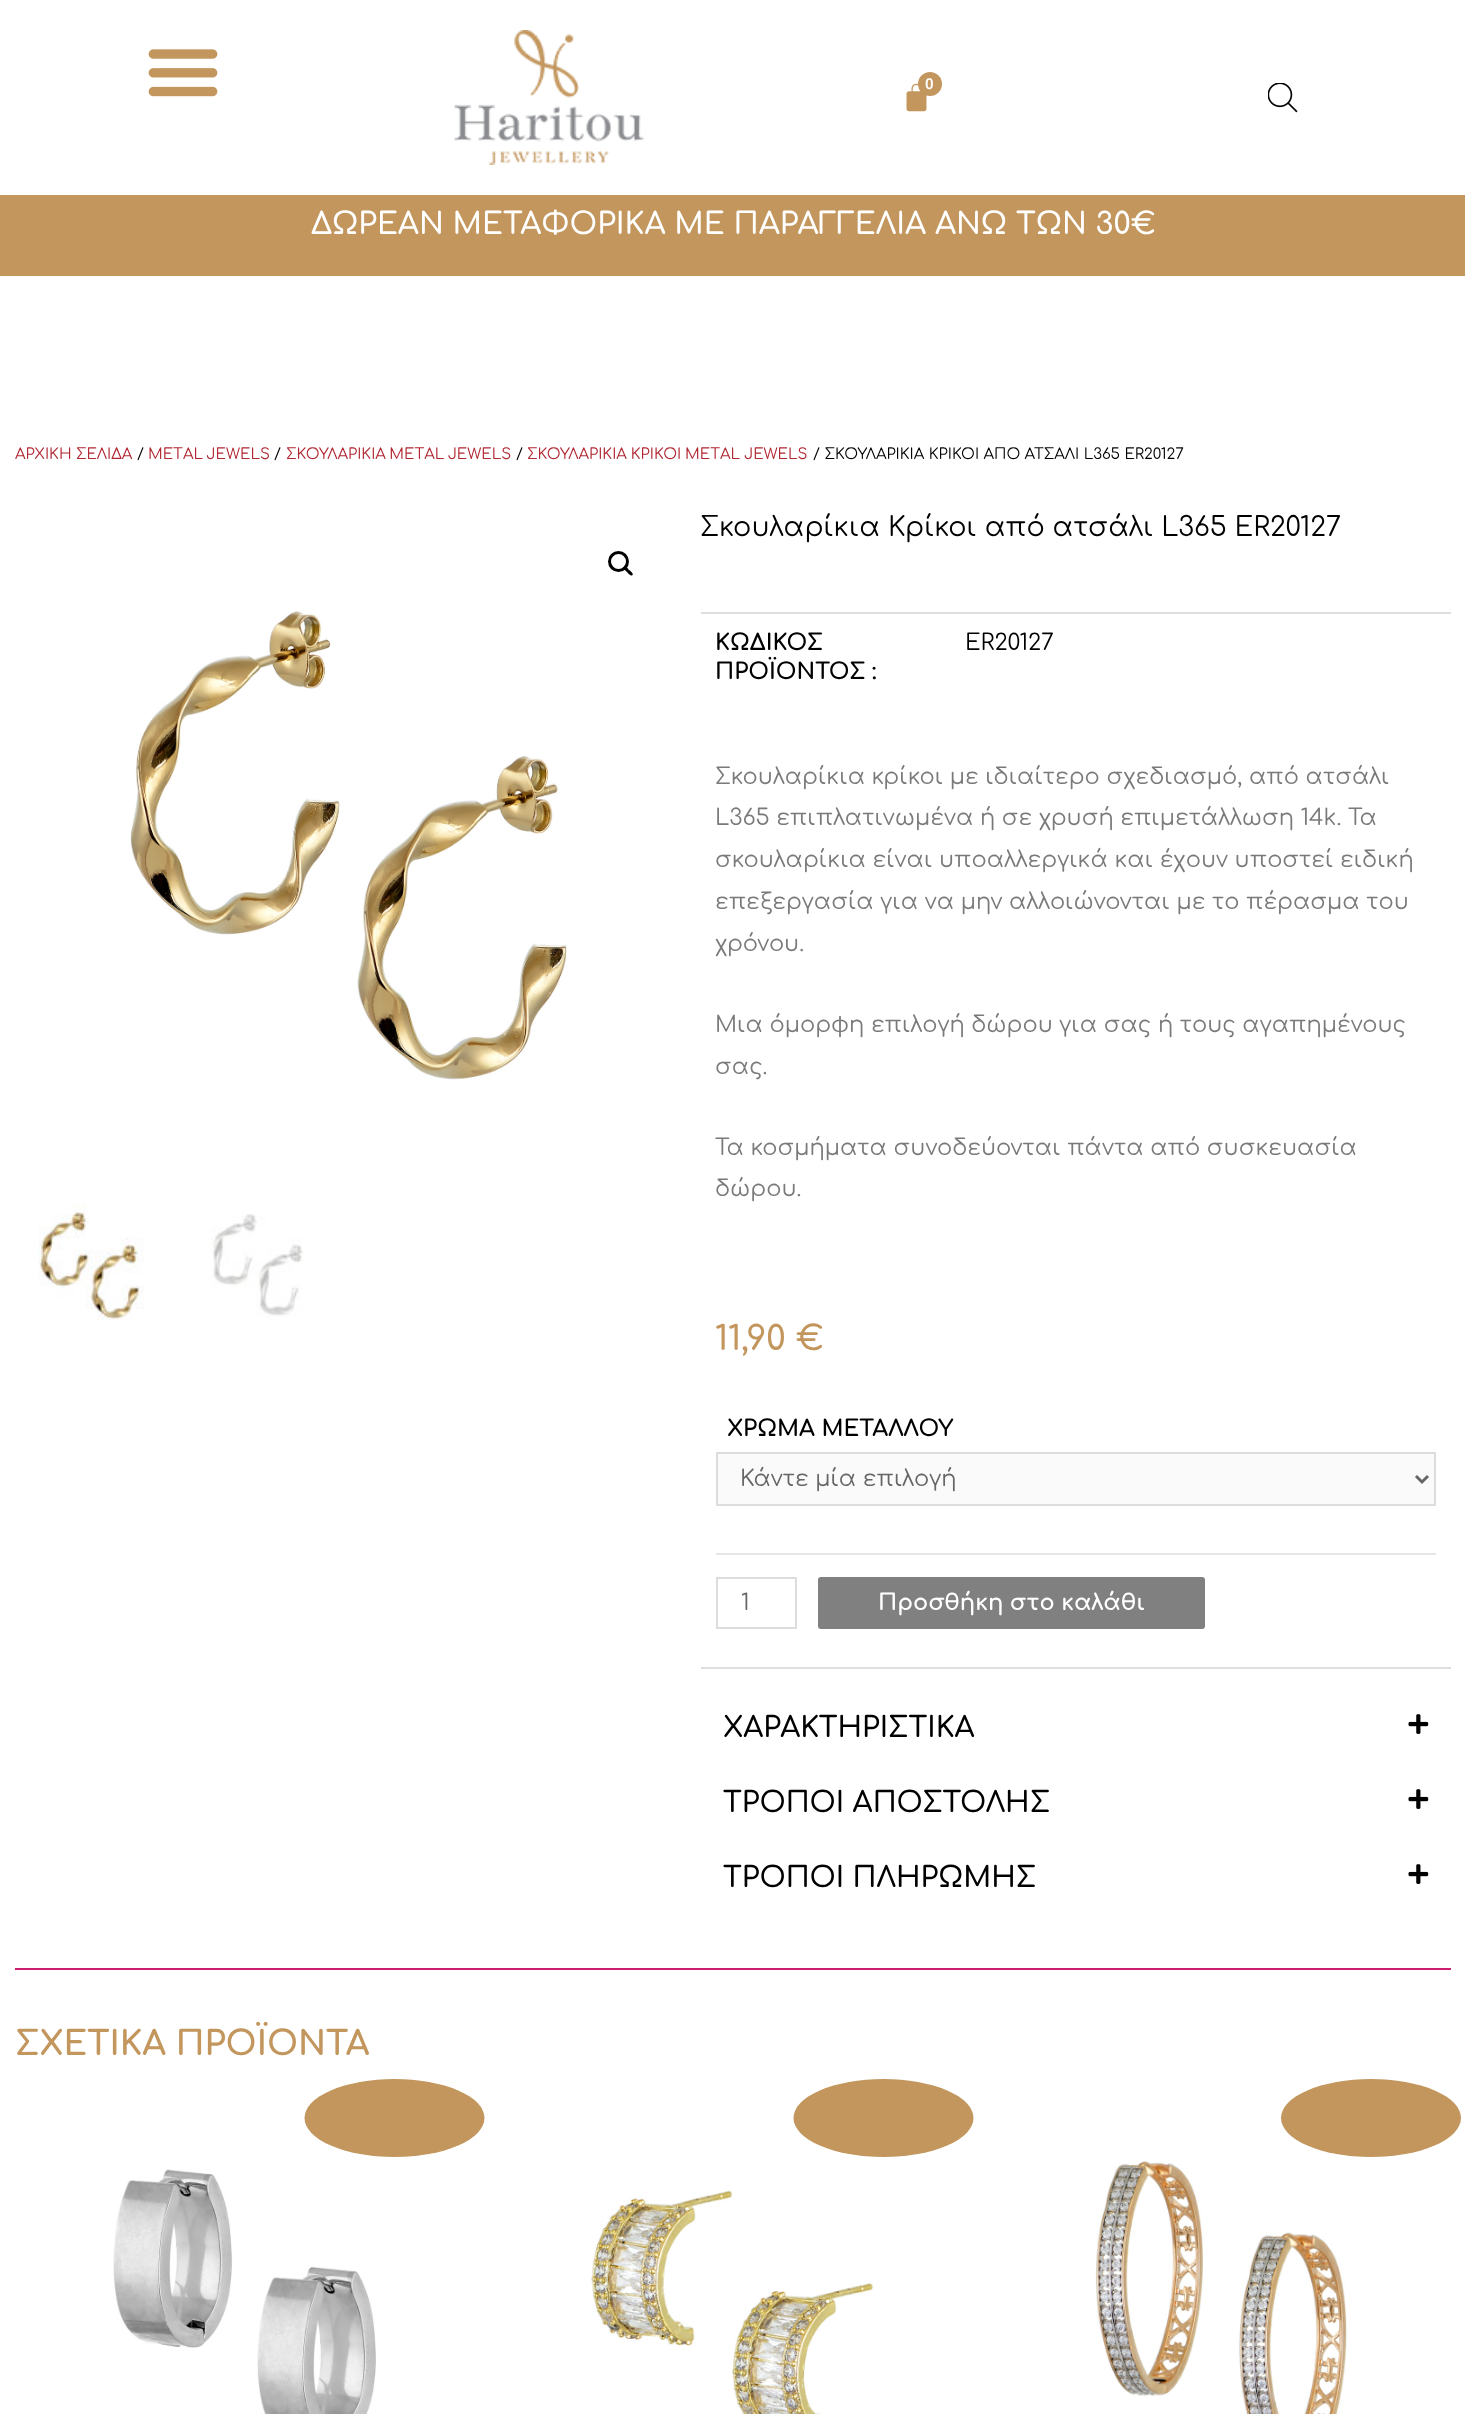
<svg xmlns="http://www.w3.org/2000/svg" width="1465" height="2414">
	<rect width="100%" height="100%" fill="#FFFFFF" />
	<image x="148" y="49" width="70" height="48" href="assets/img1.png" />
	<image x="454" y="30" width="190" height="135" href="assets/img2.png" />
	<image x="906" y="83" width="21" height="29" href="assets/img3.png" />
	<circle cx="930" cy="84" r="12" fill="#C2965D" />
	<text x="925" y="89" font-family="Roboto" font-size="15" font-weight="600" fill="#FFFFFF">0</text>
	<image x="1268" y="83" width="30" height="30" href="assets/img4.png" />
	<rect x="0" y="195" width="1465" height="81" fill="#C2965D" />
	<text x="311" y="234" font-family="Comfortaa" font-size="30" font-weight="600" fill="#FFFFFF">ΔΩΡΕΑΝ ΜΕΤΑΦΟΡΙΚΑ ΜΕ ΠΑΡΑΓΓΕΛΙΑ ΑΝΩ ΤΩΝ 30€</text>
	<text x="15" y="459" font-family="Comfortaa" font-size="15" fill="#B12732">ΑΡΧΙΚΗ ΣΕΛΙΔΑ</text>
	<text x="137" y="459" font-family="Comfortaa" font-size="15" fill="#000000">/</text>
	<text x="148" y="459" word-spacing="-1" font-family="Comfortaa" font-size="15" fill="#B12732">METAL JEWELS</text>
	<text x="274" y="459" font-family="Comfortaa" font-size="15" fill="#000000">/</text>
	<text x="286" y="459" word-spacing="-1" font-family="Comfortaa" font-size="15" fill="#B12732">ΣΚΟΥΛΑΡΙΚΙΑ METAL JEWELS</text>
	<text x="516" y="459" font-family="Comfortaa" font-size="15" fill="#000000">/</text>
	<text x="527" y="459" word-spacing="-0.5" font-family="Comfortaa" font-size="15" fill="#B12732">ΣΚΟΥΛΑΡΙΚΙΑ ΚΡΙΚΟΙ METAL JEWELS</text>
	<text x="813" y="459" font-family="Comfortaa" font-size="15" fill="#000000">/ ΣΚΟΥΛΑΡΙΚΙΑ ΚΡΙΚΟΙ ΑΠΟ ΑΤΣΑΛΙ L365 ER20127</text>
	<circle cx="618.5" cy="561.5" r="9" fill="none" stroke="#000000" stroke-width="3" />
	<path d="M624 566.5C625.5 565 628.5 569 629 570C630 570.5 634 573.5 632.5 575C630.5 577 628 573 627 572C626 571 622 568.5 624 566.5Z" fill="#000000" />
	<image x="130" y="611" width="437" height="469" href="assets/img5.png" />
	<image x="38" y="1203" width="106" height="118" href="assets/img6.png" />
	<image x="210" y="1214" width="93" height="103" href="assets/img7.png" />
	<text x="700" y="536" font-family="Comfortaa" font-size="27" fill="#000000">Σκουλαρίκια Κρίκοι από ατσάλι L365 ER20127</text>
	<rect x="701" y="612" width="750" height="2" fill="#DEDEDE" />
	<g font-family="Comfortaa" font-size="22.5" font-weight="700" fill="#000000">
		<text x="715" y="650">ΚΩΔΙΚΟΣ</text>
		<text x="715" y="679">ΠΡΟΪΟΝΤΟΣ :</text>
	</g>
	<text x="965" y="650" font-family="Comfortaa" font-size="22.5" fill="#000000">ER20127</text>
	<g font-family="Comfortaa" font-size="22.5" fill="#7A7A7A">
		<text x="715" y="784">Σκουλαρίκια κρίκοι με ιδιαίτερο σχεδιασμό, από ατσάλι</text>
		<text x="715" y="825">L365 επιπλατινωμένα ή σε χρυσή επιμετάλλωση 14k. Τα</text>
		<text x="715" y="867">σκουλαρίκια είναι υποαλλεργικά και έχουν υποστεί ειδική</text>
		<text x="715" y="909">επεξεργασία για να μην αλλοιώνονται με το πέρασμα του</text>
		<text x="715" y="951">χρόνου.</text>
		<text x="715" y="1032">Μια όμορφη επιλογή δώρου για σας ή τους αγαπημένους</text>
		<text x="715" y="1074">σας.</text>
		<text x="715" y="1155">Τα κοσμήματα συνοδεύονται πάντα από συσκευασία</text>
		<text x="715" y="1196">δώρου.</text>
	</g>
	<text x="715" y="1350" font-family="Comfortaa" font-size="33.75" font-weight="600" fill="#C2965D">11,90 €</text>
	<rect x="716" y="1553" width="720" height="2" fill="#E6E6E6" />
	<text x="727" y="1436" font-family="Comfortaa" font-size="22.5" font-weight="700" fill="#000000">ΧΡΩΜΑ ΜΕΤΑΛΛΟΥ</text>
	<rect x="717" y="1453" width="718" height="52" fill="#FAFAFA" stroke="#DDDDDD" stroke-width="2" />
	<path d="M1416 1476L1422 1482L1428 1476" fill="none" stroke="#666666" stroke-width="3" />
	<text x="740" y="1486" font-family="Comfortaa" font-size="22.5" fill="#666666">Κάντε μία επιλογή</text>
	<rect x="717" y="1578" width="79" height="50" fill="none" stroke="#DDDDDD" stroke-width="2" />
	<text x="741" y="1610" font-family="Comfortaa" font-size="22.5" fill="#666666">1</text>
	<rect x="818" y="1577" width="387" height="52" rx="3" fill="#808080" />
	<text x="878" y="1610" font-family="Comfortaa" font-size="22.5" font-weight="700" fill="#FFFFFF">Προσθήκη στο καλάθι</text>
	<rect x="701" y="1667" width="750" height="2" fill="#DEDEDE" />
	<text x="723" y="1737" font-family="Comfortaa" font-size="28.5" font-weight="600" fill="#000000">ΧΑΡΑΚΤΗΡΙΣΤΙΚΑ</text>
	<image x="1408" y="1714" width="21" height="20" href="assets/img8.png" />
	<text x="723" y="1812" font-family="Comfortaa" font-size="28.5" font-weight="600" fill="#000000">ΤΡΟΠΟΙ ΑΠΟΣΤΟΛΗΣ</text>
	<image x="1408" y="1789" width="21" height="20" href="assets/img8.png" />
	<text x="723" y="1887" font-family="Comfortaa" font-size="28.5" font-weight="600" fill="#000000">ΤΡΟΠΟΙ ΠΛΗΡΩΜΗΣ</text>
	<image x="1408" y="1864" width="21" height="20" href="assets/img8.png" />
	<rect x="15" y="1968" width="1436" height="2" fill="#CC1F6F" />
	<text x="15" y="2055" font-family="Comfortaa" font-size="33.75" font-weight="700" fill="#C2965D">ΣΧΕΤΙΚΑ ΠΡΟΪΟΝΤΑ</text>
	<ellipse cx="394.5" cy="2118" rx="90" ry="39" fill="#C2965D" />
	<image x="113" y="2169" width="263" height="245" href="assets/img9.png" />
	<ellipse cx="883.5" cy="2118" rx="90" ry="39" fill="#C2965D" />
	<image x="591" y="2190" width="283" height="224" href="assets/img10.png" />
	<ellipse cx="1371" cy="2118" rx="90" ry="39" fill="#C2965D" />
	<image x="1095" y="2161" width="252" height="253" href="assets/img11.png" />
</svg>
